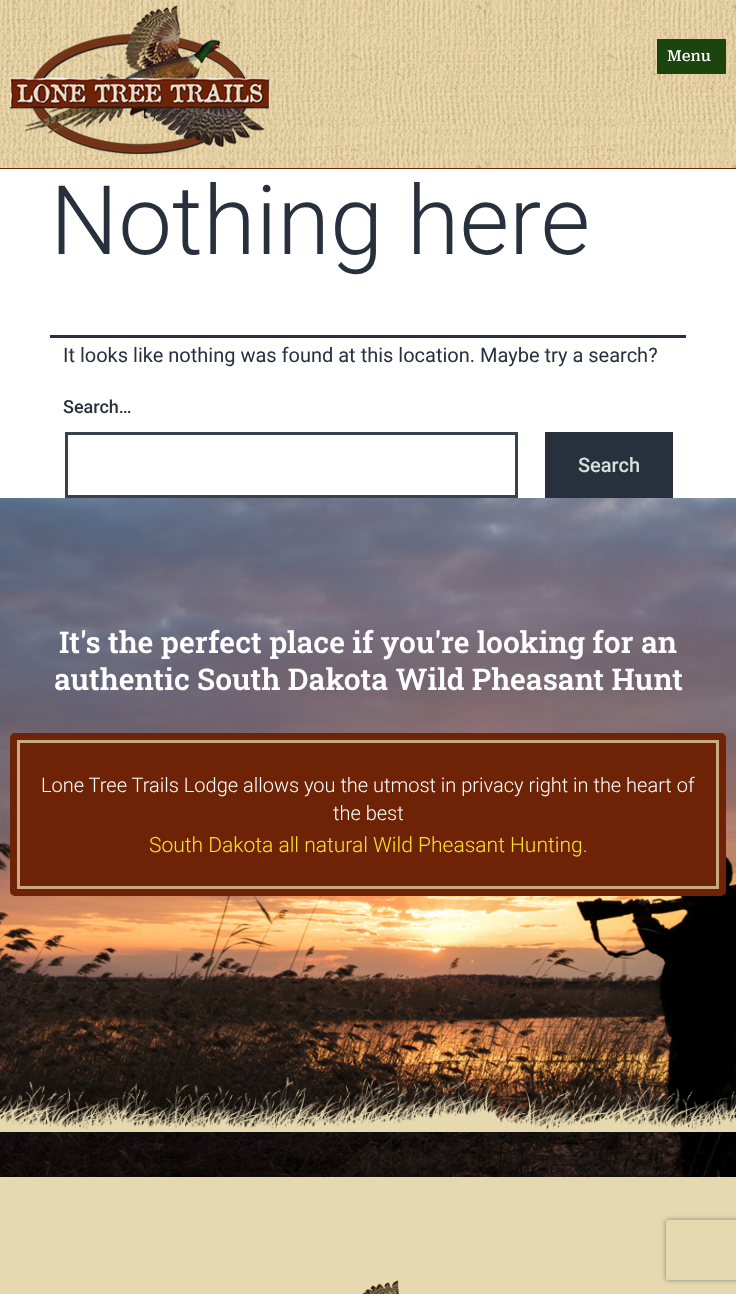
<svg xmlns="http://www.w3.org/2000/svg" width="736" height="1294">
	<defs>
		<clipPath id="clip1"><path d="M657 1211H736V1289H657ZM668 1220H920C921 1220 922 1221 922 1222V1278C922 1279 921 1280 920 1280H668C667 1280 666 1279 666 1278V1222C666 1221 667 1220 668 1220Z" clip-rule="evenodd" /></clipPath>
	</defs>
	<rect width="100%" height="100%" fill="#FFFFFF" />
	<image x="0" y="0" width="736" height="168" href="assets/img1.png" />
	<image x="10" y="5" width="259" height="149" href="assets/img2.png" />
	<rect x="657" y="39" width="69" height="35" fill="#1C440F" />
	<text x="667" y="61" font-family="Roboto Serif" font-size="15" font-weight="500" fill="#FFFFFF">Menu</text>
	<rect x="0" y="168" width="736" height="1" fill="#6E2306" />
	<rect x="50" y="335" width="636" height="3" fill="#28303D" />
	<text x="50" y="254" font-family="Roboto" font-size="96" font-weight="300" fill="#28303D">Nothing here</text>
	<text x="63" y="362" font-family="Roboto" font-size="20" fill="#28303D">It looks like nothing was found at this location. Maybe try a search?</text>
	<text x="63" y="413" font-family="Roboto" font-size="18" font-weight="500" fill="#28303D">Search…</text>
	<rect x="66.5" y="433.5" width="450" height="63" fill="none" stroke="#39414D" stroke-width="3" />
	<rect x="545" y="432" width="128" height="66" fill="#28303D" />
	<text x="578" y="472" font-family="Roboto" font-size="20" font-weight="500" fill="#D1E4DD">Search</text>
	<image x="0" y="498" width="736" height="679" href="assets/img3.png" />
	<g font-family="Roboto Slab" font-size="30" font-weight="600" fill="#FFFFFF">
		<text x="59" y="653">It's the perfect place if you're looking for an</text>
		<text x="54" y="690">authentic South Dakota Wild Pheasant Hunt</text>
	</g>
	<rect x="10" y="733" width="716" height="163" rx="5" fill="#6E2306" />
	<path d="M18.5 741.5H717.5V887.5H18.5Z" fill="none" stroke="#C7A983" stroke-width="3" />
	<g font-family="Roboto" font-size="20" font-weight="300" fill="#FFFFFF">
		<text x="41" y="792">Lone Tree Trails Lodge allows you the utmost in privacy right in the heart of</text>
		<text x="333" y="820">the best</text>
	</g>
	<text x="149" y="852" font-family="Roboto" font-size="21" font-weight="300" fill="#FFE127">South Dakota all natural Wild Pheasant Hunting.</text>
	<rect x="0" y="1177" width="736" height="117" fill="#E6D8AF" />
	<image x="0" y="1077" width="736" height="55" href="assets/img4.png" />
	<image x="362" y="1280" width="38" height="14" href="assets/img5.png" />
	<g clip-path="url(#clip1)">
		<rect x="666" y="1220" width="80" height="60" rx="2" fill="#808080" filter="blur(2.5px)" />
	</g>
</svg>
